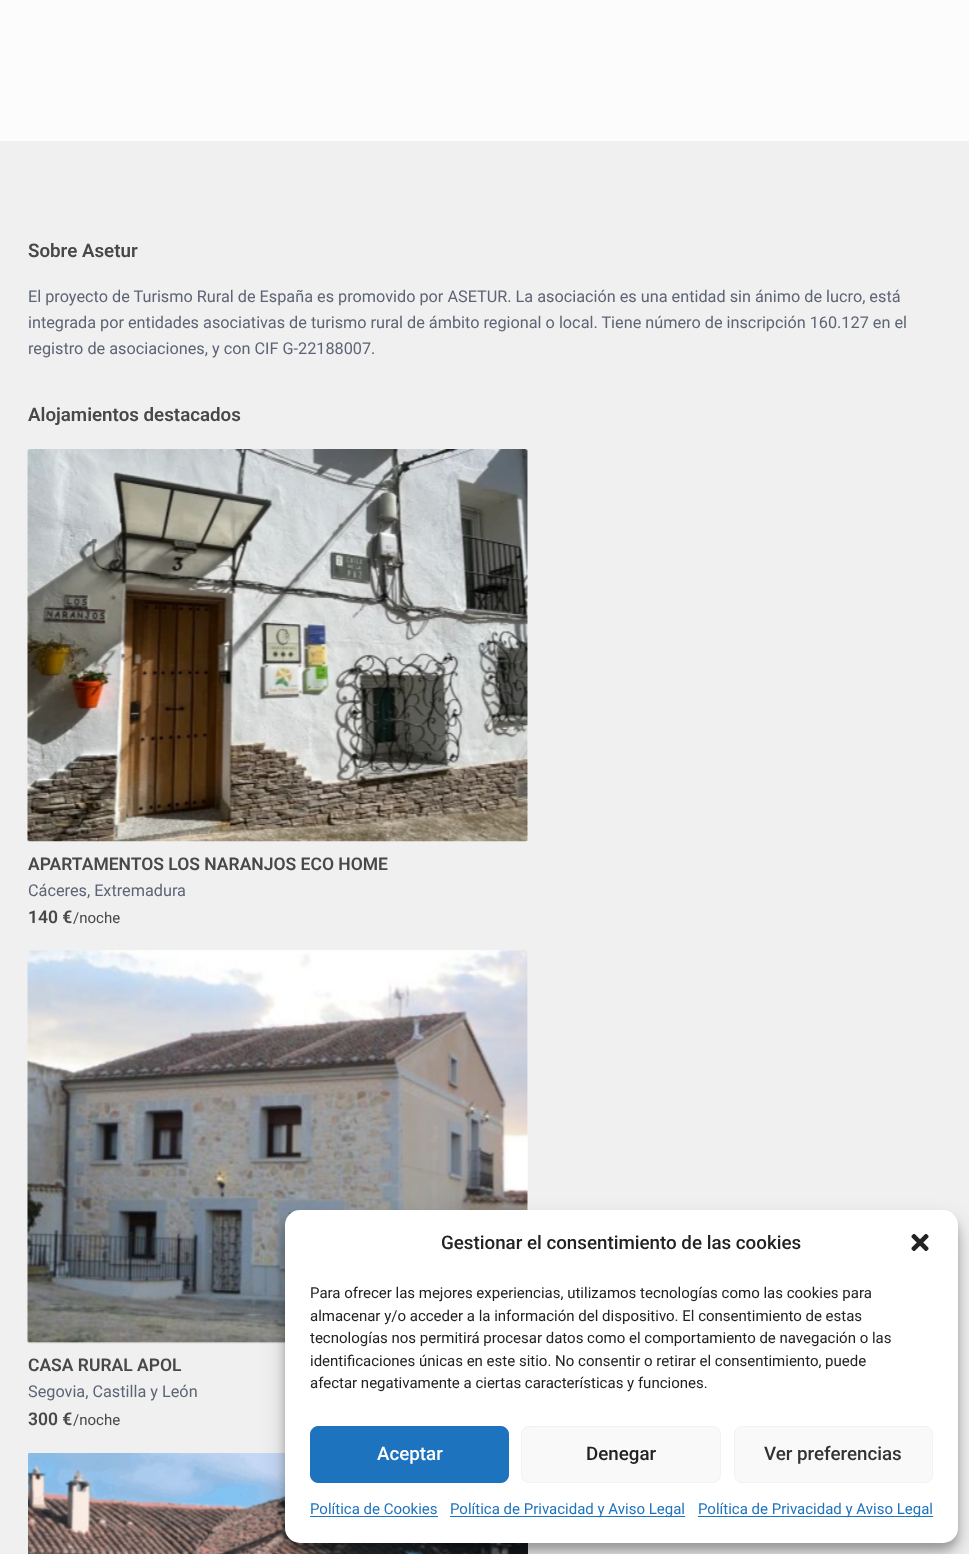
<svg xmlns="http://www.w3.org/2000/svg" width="969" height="1554">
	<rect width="100%" height="100%" fill="#FCFCFC" />
	<rect x="0" y="141" width="969" height="1413" fill="#F0F0F0" />
	<text x="28" y="257" font-family="Roboto" font-size="18.75" font-weight="600" fill="#484848">Sobre Asetur</text>
	<g font-family="Roboto" font-size="16.25" fill="#5D6475">
		<text x="28" y="302">El proyecto de Turismo Rural de España es promovido por ASETUR. La asociación es una entidad sin ánimo de lucro, está</text>
		<text x="28" y="328">integrada por entidades asociativas de turismo rural de ámbito regional o local. Tiene número de inscripción 160.127 en el</text>
		<text x="28" y="354">registro de asociaciones, y con CIF G-22188007.</text>
	</g>
	<text x="28" y="421" font-family="Roboto" font-size="18.75" font-weight="600" fill="#484848">Alojamientos destacados</text>
	<rect x="28" y="449" width="500" height="392" rx="2.5" fill="#F7F7F7" />
	<image x="27" y="449" width="501" height="393" href="assets/img1.png" />
	<text x="28" y="870" font-family="Roboto" font-size="17.5" font-weight="600" fill="#484848">APARTAMENTOS LOS NARANJOS ECO HOME</text>
	<text x="28" y="896" font-family="Roboto" font-size="16.25" fill="#5D6475">Cáceres, Extremadura</text>
	<text x="28" y="923" font-family="Roboto" font-size="17.5" font-weight="600" fill="#484848">140 €</text>
	<text x="73" y="923" font-family="Roboto" font-size="15" fill="#484848">/noche</text>
	<rect x="28" y="950" width="500" height="393" rx="2.5" fill="#F7F7F7" />
	<image x="27" y="950" width="501" height="394" href="assets/img2.png" />
	<text x="28" y="1371" font-family="Roboto" font-size="17.5" font-weight="600" fill="#484848">CASA RURAL APOL</text>
	<text x="28" y="1397" font-family="Roboto" font-size="16.25" fill="#5D6475">Segovia, Castilla y León</text>
	<text x="28" y="1425" font-family="Roboto" font-size="17.5" font-weight="600" fill="#484848">300 €</text>
	<text x="73" y="1425" font-family="Roboto" font-size="15" fill="#484848">/noche</text>
	<image x="28" y="1453" width="500" height="101" href="assets/img3.png" />
	<rect x="285" y="1218" width="673" height="332" rx="15" fill="#000000" fill-opacity="0.23" filter="blur(4px)" />
	<rect x="285" y="1223" width="673" height="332" rx="15" fill="#000000" fill-opacity="0.19" filter="blur(12.5px)" />
	<rect x="285" y="1210" width="673" height="333" rx="15" fill="#FFFFFF" />
	<text x="441" y="1249" font-family="Roboto" font-size="18.75" font-weight="500" fill="#222222">Gestionar el consentimiento de las cookies</text>
	<image x="911" y="1233" width="18" height="18" href="assets/img4.png" />
	<g font-family="Roboto" font-size="15" fill="#222222">
		<text x="310" y="1298">Para ofrecer las mejores experiencias, utilizamos tecnologías como las cookies para</text>
		<text x="310" y="1321">almacenar y/o acceder a la información del dispositivo. El consentimiento de estas</text>
		<text x="310" y="1343">tecnologías nos permitirá procesar datos como el comportamiento de navegación o las</text>
		<text x="310" y="1366">identificaciones únicas en este sitio. No consentir o retirar el consentimiento, puede</text>
		<text x="310" y="1388">afectar negativamente a ciertas características y funciones.</text>
	</g>
	<rect x="310.5" y="1426.5" width="198" height="56" rx="7.5" fill="#1E73BE" stroke="#1E73BE" />
	<text x="377" y="1460" font-family="Roboto" font-size="18.75" font-weight="500" fill="#FFFFFF">Aceptar</text>
	<rect x="521.5" y="1426.5" width="199" height="56" rx="7.5" fill="#F9F9F9" stroke="#F2F2F2" />
	<text x="586" y="1460" font-family="Roboto" font-size="18.75" font-weight="500" fill="#222222">Denegar</text>
	<rect x="734.5" y="1426.5" width="198" height="56" rx="7.5" fill="#F9F9F9" stroke="#F2F2F2" />
	<text x="764" y="1460" font-family="Roboto" font-size="18.75" font-weight="500" fill="#333333">Ver preferencias</text>
	<text x="310" y="1514" font-family="Roboto" font-size="15" fill="#1E73BE">Política de Cookies</text>
	<rect x="310" y="1516" width="128" height="1" fill="#1E73BE" />
	<rect x="450" y="1516" width="235" height="1" fill="#1E73BE" />
	<text x="450" y="1514" font-family="Roboto" font-size="15" fill="#1E73BE">Política de Privacidad y Aviso Legal</text>
	<rect x="698" y="1516" width="235" height="1" fill="#1E73BE" />
	<text x="698" y="1514" font-family="Roboto" font-size="15" fill="#1E73BE">Política de Privacidad y Aviso Legal</text>
</svg>
